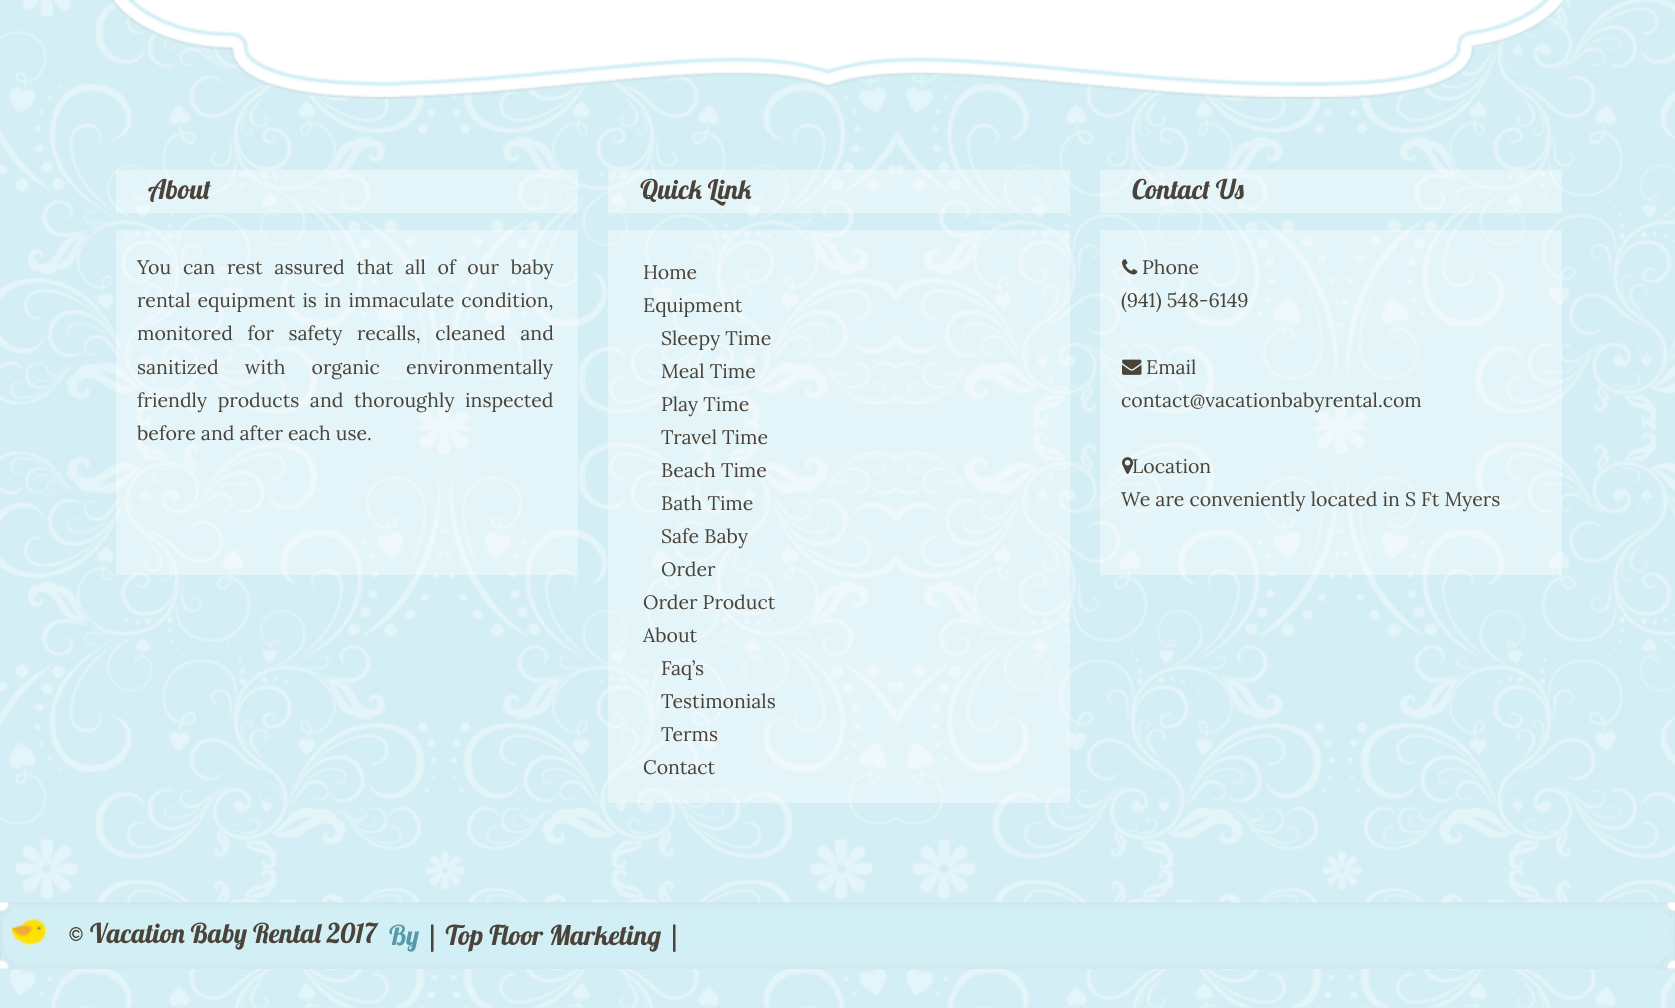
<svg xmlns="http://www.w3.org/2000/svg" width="1675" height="1008">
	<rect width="100%" height="100%" fill="#D3EEF5" />
	<image x="0" y="0" width="1675" height="1008" href="assets/img1.png" />
	<image x="111" y="0" width="1455" height="99" href="assets/img2.png" />
	<image x="1299" y="0" width="27" height="99" href="assets/img3.png" />
	<rect x="116" y="230" width="462" height="345" fill="#FFFFFF" fill-opacity="0.4" />
	<rect x="116" y="170" width="462" height="43" fill="#FFFFFF" fill-opacity="0.4" />
	<text x="148" y="199" font-family="Lobster" font-size="27" fill="#4A4339">About</text>
	<g font-family="Lora" font-size="19.5" fill="#4A4339">
		<text x="137" y="274" word-spacing="6.75">You can rest assured that all of our baby</text>
		<text x="137" y="307" word-spacing="2">rental equipment is in immaculate condition,</text>
		<text x="137" y="340" word-spacing="9.5">monitored for safety recalls, cleaned and</text>
		<text x="137" y="374" word-spacing="21">sanitized with organic environmentally</text>
		<text x="137" y="407" word-spacing="5.5">friendly products and thoroughly inspected</text>
		<text x="137" y="440">before and after each use.</text>
	</g>
	<rect x="608" y="230" width="462" height="573" fill="#FFFFFF" fill-opacity="0.4" />
	<rect x="608" y="170" width="462" height="43" fill="#FFFFFF" fill-opacity="0.4" />
	<text x="640" y="199" font-family="Lobster" font-size="27" fill="#4A4339">Quick Link</text>
	<g font-family="Lora" font-size="19.5" fill="#4A4339">
		<text x="643" y="279">Home</text>
		<text x="643" y="312">Equipment</text>
		<text x="661" y="345">Sleepy Time</text>
		<text x="661" y="378">Meal Time</text>
		<text x="661" y="411">Play Time</text>
		<text x="661" y="444">Travel Time</text>
		<text x="661" y="477">Beach Time</text>
		<text x="661" y="510">Bath Time</text>
		<text x="661" y="543">Safe Baby</text>
		<text x="661" y="576">Order</text>
		<text x="643" y="609">Order Product</text>
		<text x="643" y="642">About</text>
		<text x="661" y="675">Faq’s</text>
		<text x="661" y="708">Testimonials</text>
		<text x="661" y="741">Terms</text>
		<text x="643" y="774">Contact</text>
	</g>
	<rect x="1100" y="230" width="462" height="345" fill="#FFFFFF" fill-opacity="0.4" />
	<rect x="1100" y="170" width="462" height="43" fill="#FFFFFF" fill-opacity="0.4" />
	<text x="1132" y="199" font-family="Lobster" font-size="27" fill="#4A4339">Contact Us</text>
	<image x="1122" y="259" width="16" height="16" href="assets/img4.png" />
	<g font-family="Lora" font-size="19.5" fill="#4A4339">
		<text x="1142" y="274">Phone</text>
		<text x="1121" y="307">(941) 548-6149</text>
	</g>
	<image x="1122" y="359" width="20" height="16" href="assets/img5.png" />
	<g font-family="Lora" font-size="19.5" fill="#4A4339">
		<text x="1146" y="374">Email</text>
		<text x="1121" y="407">contact@vacationbabyrental.com</text>
	</g>
	<image x="1122" y="457" width="12" height="17" href="assets/img6.png" />
	<g font-family="Lora" font-size="19.5" fill="#4A4339">
		<text x="1132" y="473">Location</text>
		<text x="1121" y="506">We are conveniently located in S Ft Myers</text>
	</g>
	<rect x="0" y="907" width="1675" height="62" fill="#D2EFF5" />
	<image x="0" y="902" width="1675" height="67" href="assets/img7.png" />
	<image x="12" y="919" width="37" height="29" href="assets/img8.png" />
	<text x="68" y="943" font-family="Lobster" font-size="27.25" fill="#4A4339">© Vacation Baby Rental 2017</text>
	<text x="389" y="945" font-family="Lobster" font-size="27.25" fill="#5799A7">By</text>
	<text x="425" y="945" font-family="Lobster" font-size="27.25" fill="#4A4339">| Top Floor Marketing |</text>
</svg>
